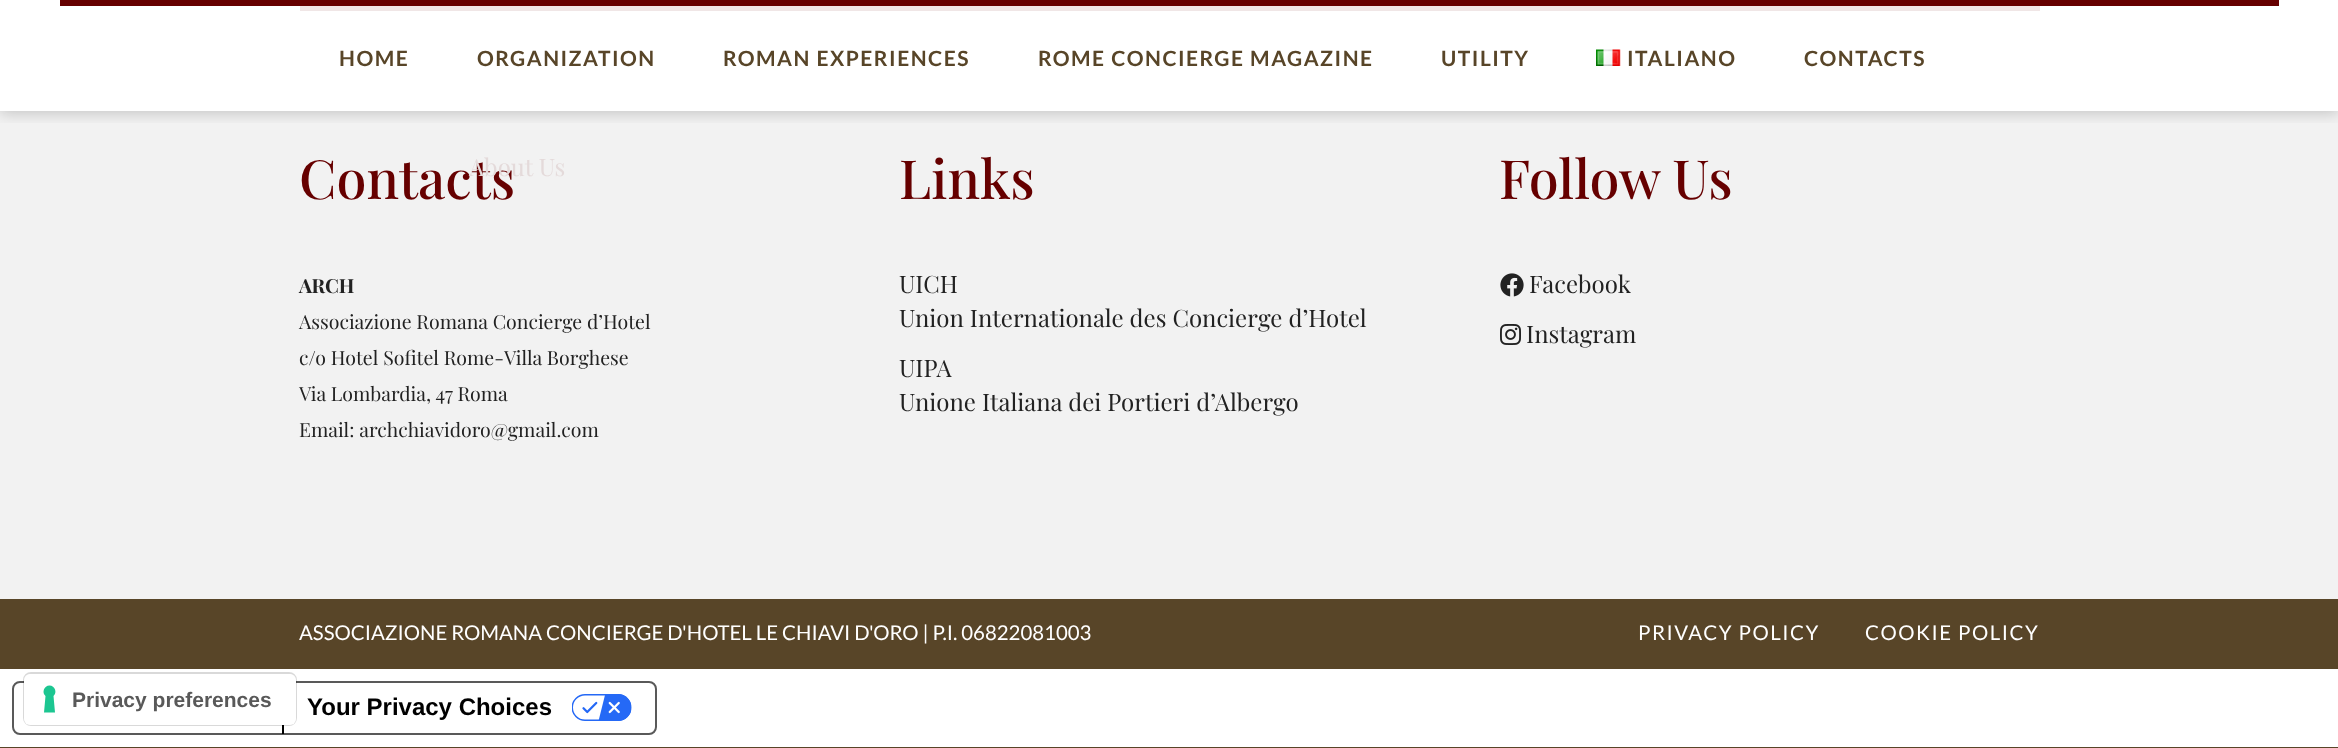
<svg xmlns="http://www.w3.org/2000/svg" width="2338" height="748">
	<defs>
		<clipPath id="clip1"><rect x="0" y="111" width="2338" height="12" /></clipPath>
	</defs>
	<rect width="100%" height="100%" fill="#FFFFFF" />
	<rect x="0" y="747" width="2338" height="1" fill="#584528" />
	<rect x="0" y="111" width="2338" height="488" fill="#F2F2F2" />
	<rect x="300" y="6" width="1740" height="5" fill="#F0E6E6" />
	<g clip-path="url(#clip1)">
		<rect x="0" y="2" width="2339" height="111" fill="#000000" fill-opacity="0.2" filter="blur(7.5px)" />
	</g>
	<rect x="60" y="0" width="2219" height="6" fill="#660000" />
	<g font-family="Lato" font-size="21" font-weight="700" letter-spacing="1.5" fill="#584528">
		<text x="339" y="66">HOME</text>
		<text x="477" y="66">ORGANIZATION</text>
	</g>
	<text x="299" y="199" font-family="Playfair Display" font-size="54" font-weight="500" fill="#660000">Contacts</text>
	<text x="469" y="176" font-family="Playfair Display" font-size="24" fill="#E4DADA">About Us</text>
	<g font-family="Lato" font-size="21" font-weight="700" letter-spacing="1.5" fill="#584528">
		<text x="723" y="66">ROMAN EXPERIENCES</text>
		<text x="1038" y="66">ROME CONCIERGE MAGAZINE</text>
		<text x="1441" y="66">UTILITY</text>
	</g>
	<image x="1596" y="49" width="25" height="17" href="assets/img1.png" />
	<g font-family="Lato" font-size="21" font-weight="700" letter-spacing="1.5" fill="#584528">
		<text x="1627" y="66">ITALIANO</text>
		<text x="1804" y="66">CONTACTS</text>
	</g>
	<text x="299" y="293" font-family="Playfair Display" font-size="19.5" font-weight="700" fill="#222222">ARCH</text>
	<g font-family="Playfair Display" font-size="19.5" fill="#222222">
		<text x="299" y="329">Associazione Romana Concierge d’Hotel</text>
		<text x="299" y="365">c/o Hotel Sofitel Rome-Villa Borghese</text>
		<text x="299" y="401">Via Lombardia, 47 Roma</text>
		<text x="299" y="437">Email: archchiavidoro@gmail.com</text>
	</g>
	<text x="899" y="199" font-family="Playfair Display" font-size="54" font-weight="500" fill="#660000">Links</text>
	<g font-family="Playfair Display" font-size="24" fill="#222222">
		<text x="899" y="293">UICH</text>
		<text x="899" y="327">Union Internationale des Concierge d’Hotel</text>
		<text x="899" y="377">UIPA</text>
		<text x="899" y="411">Unione Italiana dei Portieri d’Albergo</text>
	</g>
	<text x="1499" y="199" font-family="Playfair Display" font-size="54" font-weight="500" fill="#660000">Follow Us</text>
	<image x="1500" y="273" width="24" height="24" href="assets/img2.png" />
	<text x="1529" y="293" font-family="Playfair Display" font-size="24" fill="#222222">Facebook</text>
	<image x="1500" y="324" width="21" height="21" href="assets/img3.png" />
	<text x="1526" y="343" font-family="Playfair Display" font-size="24" fill="#222222">Instagram</text>
	<rect x="0" y="599" width="2338" height="70" fill="#584528" />
	<text x="299" y="640" font-family="Lato" font-size="20.4" fill="#FFFFFF">ASSOCIAZIONE ROMANA CONCIERGE D'HOTEL LE CHIAVI D'ORO | P.I. 06822081003</text>
	<g font-family="Lato" font-size="20.4" letter-spacing="1.5" fill="#FFFFFF">
		<text x="1638" y="640">PRIVACY POLICY</text>
		<text x="1865" y="640">COOKIE POLICY</text>
	</g>
	<rect x="13" y="682" width="643" height="52" rx="7" fill="none" stroke="#595959" stroke-width="2" />
	<rect x="282" y="725" width="2" height="9" fill="#000000" />
	<rect x="24" y="673" width="272" height="52" rx="7" fill="none" stroke="#000000" stroke-opacity="0.15" stroke-width="2" />
	<rect x="24" y="674" width="272" height="51" rx="6" fill="#FFFFFF" />
	<path d="M49.5 685.5C55 685.5 57.5 692.5 53.5 696L55 712.5H44L45.5 696C41.5 692.5 44 685.5 49.5 685.5Z" fill="#1CC691" fill-rule="evenodd" />
	<text x="72" y="707" font-family="Liberation Sans" font-size="21" font-weight="700" fill="#595959">Privacy preferences</text>
	<text x="307" y="715" font-family="Liberation Sans" font-size="24" font-weight="700" fill="#000000">Your Privacy Choices</text>
	<image x="572" y="694" width="60" height="27" href="assets/img4.png" />
</svg>
